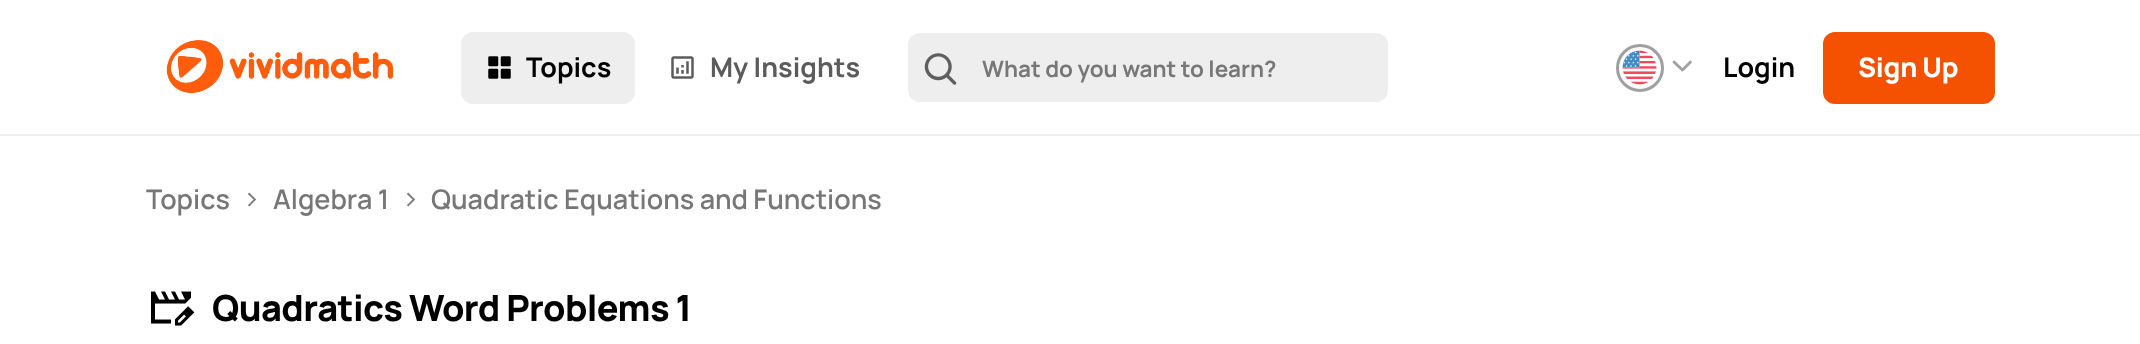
<svg xmlns="http://www.w3.org/2000/svg" width="2140" height="344">
	<rect width="100%" height="100%" fill="#FFFFFF" />
	<rect x="0" y="134" width="2140" height="2" fill="#EFEFEF" />
	<image x="166" y="40" width="228" height="54" href="assets/img1.png" />
	<rect x="461" y="32" width="174" height="72" rx="12" fill="#EEEEEE" />
	<image x="488" y="56" width="23" height="23" href="assets/img2.png" />
	<text x="526" y="77" font-family="Manrope" font-size="27" font-weight="700" fill="#000000">Topics</text>
	<image x="671" y="56" width="23" height="23" href="assets/img3.png" />
	<text x="710" y="77" font-family="Manrope" font-size="27" font-weight="700" fill="#5B5B5B">My Insights</text>
	<rect x="908" y="33" width="480" height="69" rx="12" fill="#EEEEEE" />
	<image x="924" y="53" width="33" height="32" href="assets/img4.png" />
	<text x="982" y="77" font-family="Manrope" font-size="22.5" font-weight="700" fill="#777777">What do you want to learn?</text>
	<circle cx="1640" cy="68" r="22.5" fill="none" stroke="#A0A0A0" stroke-width="3" />
	<image x="1622" y="50" width="35" height="35" href="assets/img5.png" />
	<path d="M1690.5 62L1682.5 70L1674 62" fill="none" stroke="#A0A0A0" stroke-width="2.8" stroke-linecap="round" stroke-linejoin="round" />
	<text x="1723" y="77" font-family="Manrope" font-size="27" font-weight="700" fill="#000000">Login</text>
	<rect x="1823" y="32" width="172" height="72" rx="12" fill="#F45100" />
	<text x="1858" y="77" font-family="Manrope" font-size="27" font-weight="800" letter-spacing="-0.25" fill="#FFFFFF">Sign Up</text>
	<text x="146" y="209" font-family="Manrope" font-size="27" font-weight="600" fill="#777777">Topics</text>
	<text x="242" y="209" font-family="Manrope" font-size="30" fill="#7F7F7F">&gt;</text>
	<text x="273" y="209" font-family="Manrope" font-size="27" font-weight="600" fill="#777777">Algebra 1</text>
	<text x="401" y="209" font-family="Manrope" font-size="30" fill="#7F7F7F">&gt;</text>
	<text x="431" y="209" font-family="Manrope" font-size="27" font-weight="600" fill="#777777">Quadratic Equations and Functions</text>
	<image x="151" y="291" width="44" height="35" href="assets/img6.png" />
	<text x="212" y="321" font-family="Manrope" font-size="36" font-weight="800" letter-spacing="-0.6" fill="#000000">Quadratics Word Problems 1</text>
</svg>
